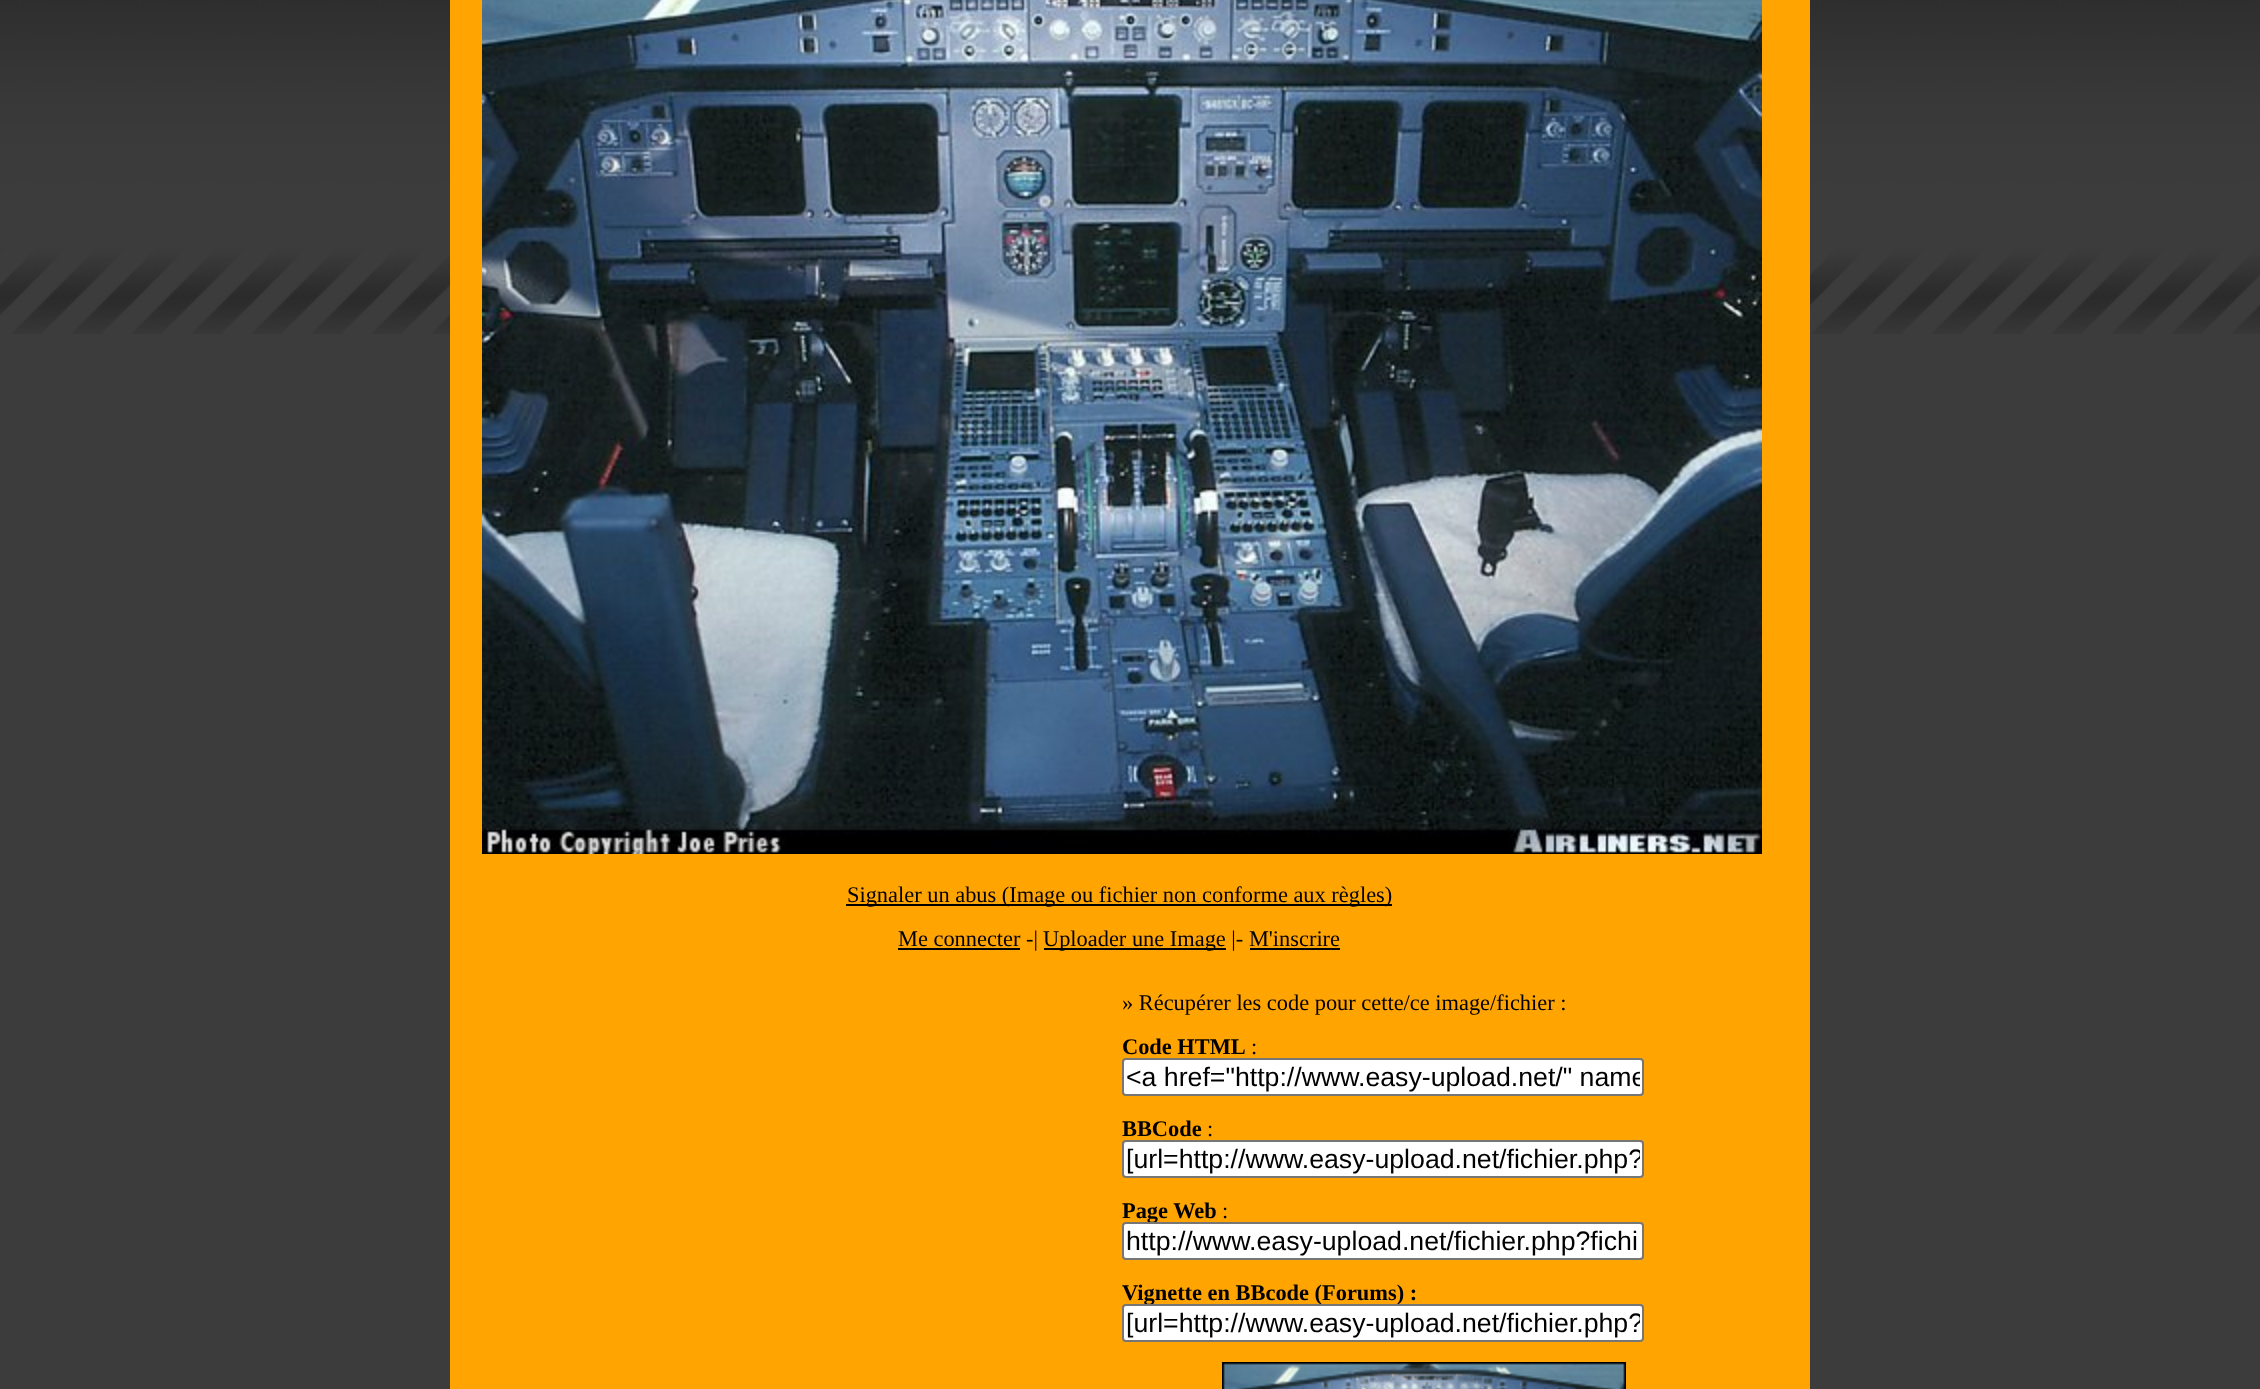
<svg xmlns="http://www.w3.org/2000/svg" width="2260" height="1389">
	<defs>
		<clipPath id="clip1"><rect x="1126" y="1062" width="514" height="30" /></clipPath>
		<clipPath id="clip2"><rect x="1126" y="1144" width="514" height="30" /></clipPath>
		<clipPath id="clip3"><rect x="1126" y="1308" width="514" height="30" /></clipPath>
	</defs>
	<rect width="100%" height="100%" fill="#3C3C3C" />
	<image x="0" y="0" width="2260" height="334" href="assets/img1.png" />
	<rect x="450" y="0" width="1360" height="1389" fill="#FFA401" />
	<image x="482" y="0" width="1280" height="854" href="assets/img2.png" />
	<rect x="846" y="904" width="546" height="2" fill="#000000" />
	<text x="847" y="902" font-family="Liberation Serif" font-size="22.4" fill="#000000">Signaler un abus (Image ou fichier non conforme aux règles)</text>
	<rect x="898" y="948" width="122" height="2" fill="#000000" />
	<text x="898" y="946" font-family="Liberation Serif" font-size="22.4" fill="#000000">Me connecter -|</text>
	<rect x="1044" y="948" width="182" height="2" fill="#000000" />
	<text x="1043" y="946" font-family="Liberation Serif" font-size="22.4" fill="#000000">Uploader une Image |- M'inscrire</text>
	<rect x="1250" y="948" width="90" height="2" fill="#000000" />
	<text x="1122" y="1010" font-family="Liberation Serif" font-size="22.4" fill="#000000">» Récupérer les code pour cette/ce image/fichier :</text>
	<text x="1122" y="1054" font-family="Liberation Serif" font-size="22.4" font-weight="700" fill="#000000">Code HTML</text>
	<text x="1251" y="1054" font-family="Liberation Serif" font-size="22.4" fill="#000000">:</text>
	<rect x="1123" y="1059" width="520" height="36" rx="3" fill="#FFFFFF" stroke="#767676" stroke-width="2" />
	<g clip-path="url(#clip1)">
		<text x="1126" y="1086" font-family="Liberation Sans" font-size="26.7" fill="#000000">&lt;a href="http://www.easy-upload.net/" name</text>
	</g>
	<text x="1122" y="1136" font-family="Liberation Serif" font-size="22.4" font-weight="700" fill="#000000">BBCode</text>
	<text x="1207" y="1136" font-family="Liberation Serif" font-size="22.4" fill="#000000">:</text>
	<rect x="1123" y="1141" width="520" height="36" rx="3" fill="#FFFFFF" stroke="#767676" stroke-width="2" />
	<g clip-path="url(#clip2)">
		<text x="1126" y="1168" font-family="Liberation Sans" font-size="26.7" fill="#000000">[url=http://www.easy-upload.net/fichier.php?</text>
	</g>
	<text x="1122" y="1218" font-family="Liberation Serif" font-size="22.4" font-weight="700" fill="#000000">Page Web</text>
	<text x="1222" y="1218" font-family="Liberation Serif" font-size="22.4" fill="#000000">:</text>
	<rect x="1123" y="1223" width="520" height="36" rx="3" fill="#FFFFFF" stroke="#767676" stroke-width="2" />
	<text x="1126" y="1250" font-family="Liberation Sans" font-size="26.7" fill="#000000">http://www.easy-upload.net/fichier.php?fichi</text>
	<text x="1122" y="1300" font-family="Liberation Serif" font-size="22.4" font-weight="700" fill="#000000">Vignette en BBcode (Forums) :</text>
	<rect x="1123" y="1305" width="520" height="36" rx="3" fill="#FFFFFF" stroke="#767676" stroke-width="2" />
	<g clip-path="url(#clip3)">
		<text x="1126" y="1332" font-family="Liberation Sans" font-size="26.7" fill="#000000">[url=http://www.easy-upload.net/fichier.php?</text>
	</g>
	<image x="1222" y="1362" width="404" height="27" href="assets/img3.png" />
</svg>
